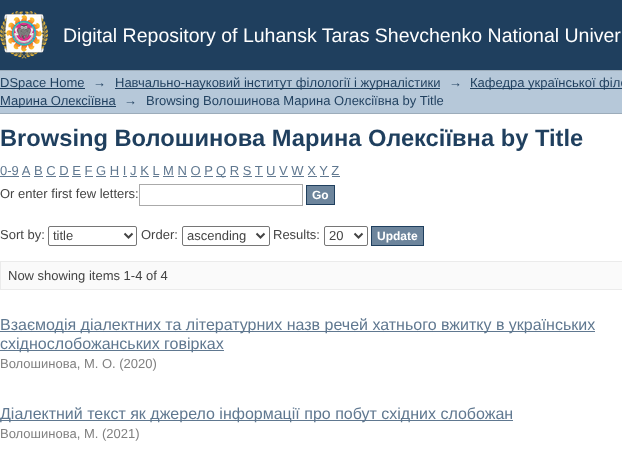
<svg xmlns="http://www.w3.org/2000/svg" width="622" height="453">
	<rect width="100%" height="100%" fill="#FFFFFF" />
	<rect x="0" y="0" width="622" height="70" fill="#1F3F5E" />
	<image x="0" y="11" width="48" height="48" href="assets/img1.png" />
	<text x="63" y="42" font-family="Liberation Sans" font-size="19.5" fill="#FFFFFF">Digital Repository of Luhansk Taras Shevchenko National Univer</text>
	<rect x="0" y="71" width="622" height="42" fill="#B6C8D9" />
	<rect x="0" y="70" width="622" height="1" fill="#9CACBA" />
	<rect x="0" y="113" width="622" height="1" fill="#9CACBA" />
	<rect x="0" y="88" width="85" height="1" fill="#1F3F5E" />
	<g font-family="Liberation Sans" font-size="13" fill="#1F3F5E">
		<text x="0" y="87">DSpace Home</text>
		<text x="93" y="87">→</text>
	</g>
	<rect x="115" y="88" width="325" height="1" fill="#1F3F5E" />
	<g font-family="Liberation Sans" font-size="13" fill="#1F3F5E">
		<text x="115" y="87">Навчально-науковий інститут філології і журналістики</text>
		<text x="449" y="87">→</text>
	</g>
	<rect x="470" y="88" width="152" height="1" fill="#1F3F5E" />
	<text x="470" y="87" font-family="Liberation Sans" font-size="13" fill="#1F3F5E">Кафедра української філо</text>
	<rect x="0" y="106" width="116" height="1" fill="#1F3F5E" />
	<g font-family="Liberation Sans" font-size="13" fill="#1F3F5E">
		<text x="0" y="105">Марина Олексіївна</text>
		<text x="124" y="105">→</text>
		<text x="146" y="105">Browsing Волошинова Марина Олексіївна by Title</text>
	</g>
	<text x="0" y="146" font-family="Liberation Sans" font-size="23.7" font-weight="700" fill="#1F3F5E">Browsing Волошинова Марина Олексіївна by Title</text>
	<text x="0" y="175" font-family="Liberation Sans" font-size="13" fill="#607890">0-9 A</text>
	<rect x="0" y="176" width="19" height="1" fill="#607890" />
	<text x="34" y="175" font-family="Liberation Sans" font-size="13" fill="#607890">B C D E F G H I J K L</text>
	<rect x="34" y="176" width="9" height="1" fill="#607890" />
	<text x="163" y="175" font-family="Liberation Sans" font-size="13" fill="#607890">M N O P</text>
	<rect x="163" y="176" width="11" height="1" fill="#607890" />
	<rect x="216" y="176" width="10" height="1" fill="#607890" />
	<text x="216" y="175" font-family="Liberation Sans" font-size="13" fill="#607890">Q R S T U V W X Y Z</text>
	<rect x="22" y="176" width="8" height="1" fill="#607890" />
	<rect x="46" y="176" width="10" height="1" fill="#607890" />
	<rect x="59" y="176" width="10" height="1" fill="#607890" />
	<rect x="72" y="176" width="9" height="1" fill="#607890" />
	<rect x="85" y="176" width="8" height="1" fill="#607890" />
	<rect x="96" y="176" width="10" height="1" fill="#607890" />
	<rect x="110" y="176" width="9" height="1" fill="#607890" />
	<rect x="123" y="176" width="4" height="1" fill="#607890" />
	<rect x="130" y="176" width="7" height="1" fill="#607890" />
	<rect x="140" y="176" width="9" height="1" fill="#607890" />
	<rect x="153" y="176" width="6" height="1" fill="#607890" />
	<rect x="178" y="176" width="9" height="1" fill="#607890" />
	<rect x="191" y="176" width="10" height="1" fill="#607890" />
	<rect x="204" y="176" width="9" height="1" fill="#607890" />
	<rect x="230" y="176" width="9" height="1" fill="#607890" />
	<rect x="243" y="176" width="9" height="1" fill="#607890" />
	<rect x="255" y="176" width="8" height="1" fill="#607890" />
	<rect x="267" y="176" width="9" height="1" fill="#607890" />
	<rect x="280" y="176" width="8" height="1" fill="#607890" />
	<rect x="292" y="176" width="12" height="1" fill="#607890" />
	<rect x="308" y="176" width="9" height="1" fill="#607890" />
	<rect x="320" y="176" width="9" height="1" fill="#607890" />
	<rect x="332" y="176" width="8" height="1" fill="#607890" />
	<text x="0" y="198" font-family="Liberation Sans" font-size="13" fill="#444444">Or enter first few letters:</text>
	<rect x="139.5" y="184.5" width="163" height="21" fill="none" stroke="#AAAAAA" />
	<rect x="306.5" y="185.5" width="28" height="19" fill="#6D859C" stroke="#1F3F5E" />
	<text x="312" y="199" font-family="Liberation Sans" font-size="12" font-weight="700" fill="#FFFFFF">Go</text>
	<text x="0" y="239" font-family="Liberation Sans" font-size="13" fill="#444444">Sort by:</text>
	<rect x="48.5" y="226.5" width="88" height="19" rx="1.5" fill="none" stroke="#767676" />
	<path d="M124.5 233.5L128.5 237.5L132.5 233.5" fill="none" stroke="#444444" stroke-width="2" />
	<g font-family="Liberation Sans" font-size="13" fill="#444444">
		<text x="53" y="240">title</text>
		<text x="141" y="239">Order:</text>
	</g>
	<rect x="182.5" y="226.5" width="87" height="19" rx="1.5" fill="none" stroke="#767676" />
	<path d="M256.5 233.5L260.5 237.5L264.5 233.5" fill="none" stroke="#444444" stroke-width="2" />
	<g font-family="Liberation Sans" font-size="13" fill="#444444">
		<text x="187" y="240">ascending</text>
		<text x="273" y="239">Results:</text>
	</g>
	<rect x="324.5" y="226.5" width="43" height="19" rx="1.5" fill="none" stroke="#767676" />
	<path d="M354.5 233.5L358.5 237.5L362.5 233.5" fill="none" stroke="#444444" stroke-width="2" />
	<text x="329" y="240" font-family="Liberation Sans" font-size="13" fill="#444444">20</text>
	<rect x="371.5" y="226.5" width="52" height="19" fill="#6D859C" stroke="#1F3F5E" />
	<text x="377" y="240" font-family="Liberation Sans" font-size="12" font-weight="700" fill="#FFFFFF">Update</text>
	<rect x="0.5" y="261.5" width="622" height="28" fill="#FAFAFA" stroke="#EBEBEB" />
	<text x="8" y="280" font-family="Liberation Sans" font-size="13" fill="#444444">Now showing items 1-4 of 4</text>
	<rect x="0" y="331" width="595" height="1" fill="#607890" />
	<text x="0" y="330" font-family="Liberation Sans" font-size="16" fill="#607890">Взаємодія діалектних та літературних назв речей хатнього вжитку в українських</text>
	<rect x="0" y="350" width="224" height="1" fill="#607890" />
	<text x="0" y="349" font-family="Liberation Sans" font-size="16" fill="#607890">східнослобожанських говірках</text>
	<text x="0" y="368" font-family="Liberation Sans" font-size="13" fill="#808080">Волошинова, М. О. (2020)</text>
	<rect x="0" y="420" width="513" height="1" fill="#607890" />
	<text x="0" y="419" font-family="Liberation Sans" font-size="16" fill="#607890">Діалектний текст як джерело інформації про побут східних слобожан</text>
	<text x="0" y="438" font-family="Liberation Sans" font-size="13" fill="#808080">Волошинова, М. (2021)</text>
</svg>
